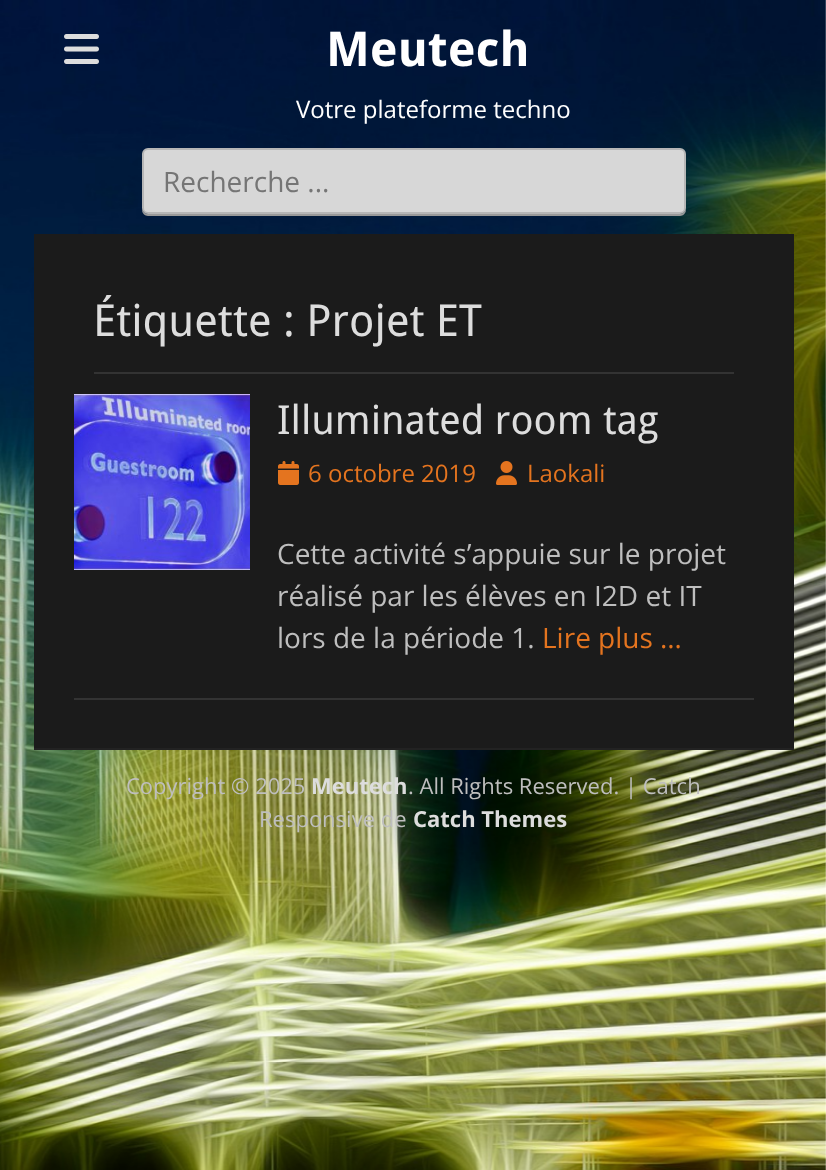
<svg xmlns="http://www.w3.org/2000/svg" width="826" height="1170">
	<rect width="100%" height="100%" fill="#FFFFFF" />
	<image x="0" y="0" width="826" height="1170" href="assets/img1.png" />
	<image x="64" y="34" width="35" height="30" href="assets/img2.png" />
	<text x="326" y="66" font-family="Droid Sans" font-size="48" font-weight="700" fill="#FFFFFF">Meutech</text>
	<text x="296" y="118" font-family="Open Sans" font-size="24" fill="#FFFFFF">Votre plateforme techno</text>
	<path d="M142 208V210C142 213 145 216 148 216H680C683 216 686 213 686 210V208C686 211 683 214 680 214H148C145 214 142 211 142 208Z" fill="#999999" />
	<rect x="143" y="149" width="542" height="64" rx="5" fill="#D7D7D7" stroke="#B6B6B6" stroke-width="2" />
	<text x="163" y="192" font-family="Open Sans" font-size="28" fill="#757575">Recherche ...</text>
	<rect x="34" y="234" width="760" height="514" fill="#1B1B1B" />
	<rect x="94" y="372" width="640" height="2" fill="#333333" />
	<text x="93" y="336" font-family="Droid Sans" font-size="44" fill="#DDDDDD">Étiquette : Projet ET</text>
	<rect x="74" y="698" width="680" height="2" fill="#333333" />
	<image x="74" y="394" width="176" height="176" href="assets/img3.png" />
	<text x="277" y="434" font-family="Droid Sans" font-size="40" fill="#DDDDDD">Illuminated room tag</text>
	<image x="278" y="461" width="21" height="24" href="assets/img4.png" />
	<text x="308" y="482" font-family="Open Sans" font-size="24" fill="#E4741F">6 octobre 2019</text>
	<image x="496" y="461" width="21" height="24" href="assets/img5.png" />
	<text x="527" y="482" font-family="Open Sans" font-size="24" fill="#E4741F">Laokali</text>
	<g font-family="Open Sans" font-size="28" fill="#BEBEBE">
		<text x="277" y="564">Cette activité s’appuie sur le projet</text>
		<text x="277" y="606">réalisé par les élèves en I2D et IT</text>
		<text x="277" y="648">lors de la période 1.</text>
	</g>
	<text x="542" y="648" font-family="Open Sans" font-size="28" fill="#E4741F">Lire plus …</text>
	<rect x="34" y="748" width="760" height="2" fill="#222222" />
	<text x="126" y="794" font-family="Open Sans" font-size="22" fill="#BEBEBE">Copyright © 2025</text>
	<text x="311" y="794" font-family="Open Sans" font-size="22" font-weight="700" fill="#DDDDDD">Meutech</text>
	<g font-family="Open Sans" font-size="22" fill="#BEBEBE">
		<text x="408" y="794">. All Rights Reserved. | Catch</text>
		<text x="259" y="827">Responsive de</text>
	</g>
	<text x="413" y="827" font-family="Open Sans" font-size="22" font-weight="700" fill="#DDDDDD">Catch Themes</text>
</svg>
